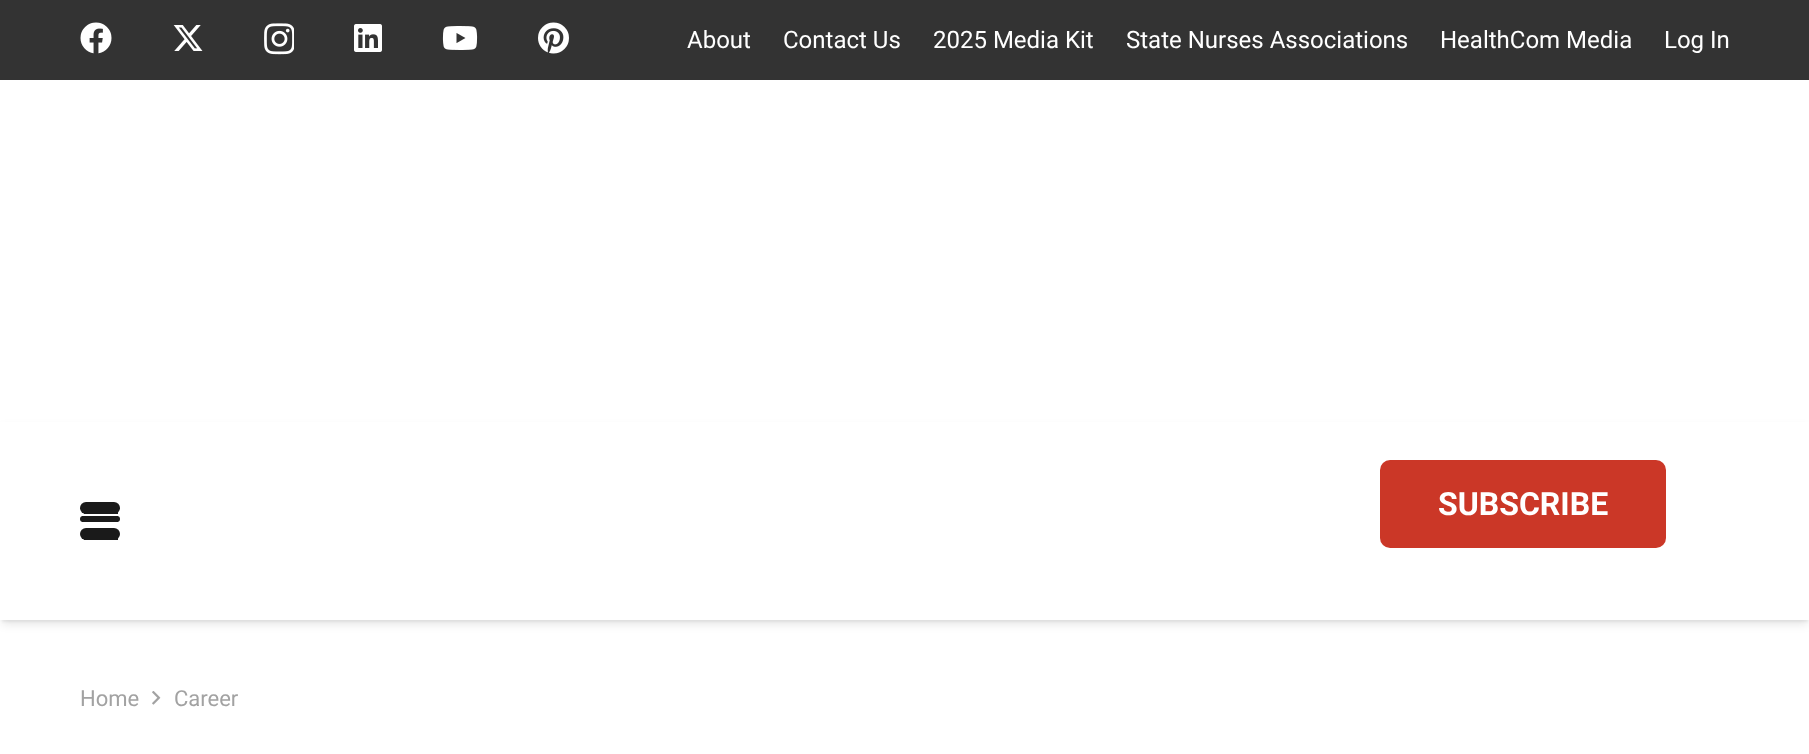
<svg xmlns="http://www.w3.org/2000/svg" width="1809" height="754">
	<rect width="100%" height="100%" fill="#FFFFFF" />
	<rect x="0" y="0" width="1809" height="80" fill="#333333" />
	<image x="80" y="22" width="32" height="32" href="assets/img1.png" />
	<image x="173" y="25" width="30" height="26" href="assets/img2.png" />
	<image x="264" y="23" width="30" height="32" href="assets/img3.png" />
	<image x="354" y="24" width="28" height="28" href="assets/img4.png" />
	<image x="442" y="26" width="36" height="24" href="assets/img5.png" />
	<image x="538" y="22" width="31" height="32" href="assets/img6.png" />
	<g font-family="Roboto" font-size="24" fill="#FFFFFF">
		<text x="687" y="48">About</text>
		<text x="783" y="48">Contact Us</text>
		<text x="933" y="48">2025 Media Kit</text>
		<text x="1126" y="48">State Nurses Associations</text>
		<text x="1440" y="48">HealthCom Media</text>
		<text x="1664" y="48">Log In</text>
	</g>
	<rect x="2" y="426" width="1806" height="196" fill="#000000" fill-opacity="0.05" filter="blur(1px)" />
	<rect x="2" y="428" width="1806" height="196" fill="#000000" fill-opacity="0.1" filter="blur(5px)" />
	<rect x="0" y="422" width="1809" height="198" fill="#FFFFFF" />
	<rect x="80" y="516" width="40" height="6" rx="3" fill="#1A1A1A" />
	<rect x="82" y="516" width="36" height="6" fill="#1A1A1A" />
	<rect x="80" y="502" width="40" height="12" rx="6" fill="#1A1A1A" />
	<rect x="84" y="512" width="34" height="2" fill="#1A1A1A" />
	<rect x="80" y="528" width="40" height="12" rx="6" fill="#1A1A1A" />
	<rect x="84" y="538" width="34" height="2" fill="#1A1A1A" />
	<rect x="1380" y="460" width="286" height="88" rx="10" fill="#CB3727" />
	<text x="1438" y="515" font-family="Roboto" font-size="32" font-weight="700" fill="#FFFFFF">SUBSCRIBE</text>
	<text x="80" y="706" font-family="Roboto" font-size="22" fill="#A2A2A2">Home</text>
	<image x="152" y="691" width="9" height="14" href="assets/img7.png" />
	<text x="174" y="706" font-family="Roboto" font-size="22" fill="#A2A2A2">Career</text>
</svg>
